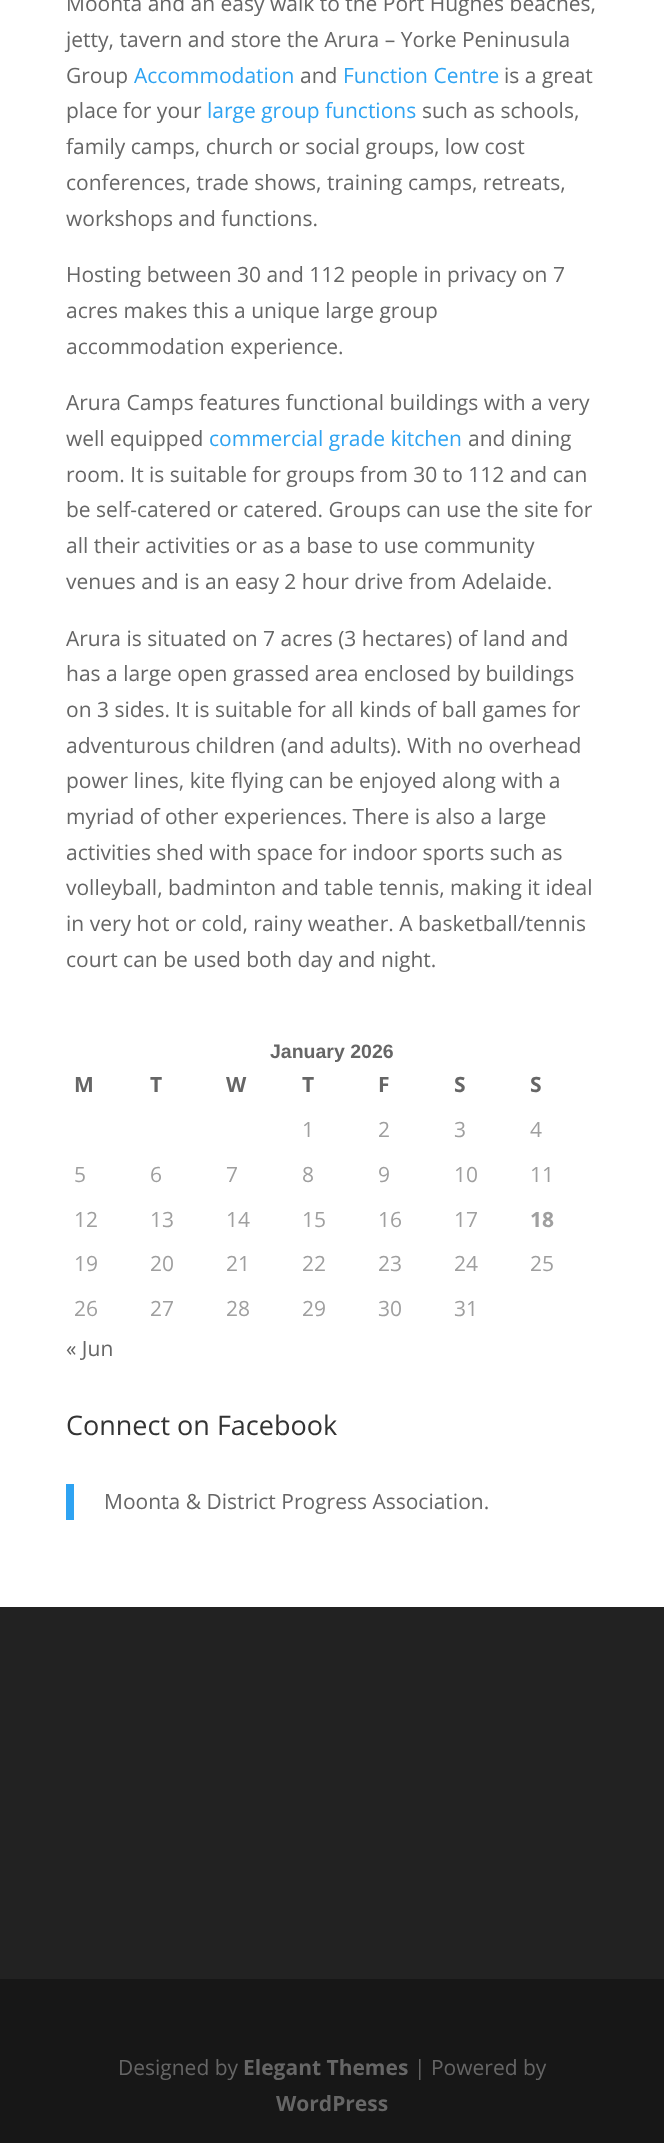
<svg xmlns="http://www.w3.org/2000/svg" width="664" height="2143">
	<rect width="100%" height="100%" fill="#FFFFFF" />
	<g font-family="Open Sans" font-size="21" fill="#666666">
		<text x="66" y="11">Moonta and an easy walk to the Port Hughes beaches,</text>
		<text x="66" y="47">jetty, tavern and store the Arura – Yorke Peninusula</text>
		<text x="66" y="83">Group</text>
	</g>
	<text x="134" y="83" font-family="Open Sans" font-size="21" fill="#2EA3F2">Accommodation</text>
	<text x="300" y="83" font-family="Open Sans" font-size="21" fill="#666666">and</text>
	<text x="343" y="83" font-family="Open Sans" font-size="21" fill="#2EA3F2">Function Centre</text>
	<g font-family="Open Sans" font-size="21" fill="#666666">
		<text x="504" y="83">is a great</text>
		<text x="66" y="118">place for your</text>
	</g>
	<text x="207" y="118" font-family="Open Sans" font-size="21" fill="#2EA3F2">large group functions</text>
	<g font-family="Open Sans" font-size="21" fill="#666666">
		<text x="422" y="118">such as schools,</text>
		<text x="66" y="154">family camps, church or social groups, low cost</text>
		<text x="66" y="190">conferences, trade shows, training camps, retreats,</text>
		<text x="66" y="226">workshops and functions.</text>
		<text x="66" y="282">Hosting between 30 and 112 people in privacy on 7</text>
		<text x="66" y="318">acres makes this a unique large group</text>
		<text x="66" y="354">accommodation experience.</text>
		<text x="66" y="410">Arura Camps features functional buildings with a very</text>
		<text x="66" y="446">well equipped</text>
	</g>
	<text x="209" y="446" font-family="Open Sans" font-size="21" fill="#2EA3F2">commercial grade kitchen</text>
	<g font-family="Open Sans" font-size="21" fill="#666666">
		<text x="468" y="446">and dining</text>
		<text x="66" y="482">room. It is suitable for groups from 30 to 112 and can</text>
		<text x="66" y="517">be self-catered or catered. Groups can use the site for</text>
		<text x="66" y="553">all their activities or as a base to use community</text>
		<text x="66" y="589">venues and is an easy 2 hour drive from Adelaide.</text>
		<text x="66" y="646">Arura is situated on 7 acres (3 hectares) of land and</text>
		<text x="66" y="681">has a large open grassed area enclosed by buildings</text>
		<text x="66" y="717">on 3 sides. It is suitable for all kinds of ball games for</text>
		<text x="66" y="753">adventurous children (and adults). With no overhead</text>
		<text x="66" y="788">power lines, kite flying can be enjoyed along with a</text>
		<text x="66" y="824">myriad of other experiences. There is also a large</text>
		<text x="66" y="860">activities shed with space for indoor sports such as</text>
		<text x="66" y="895">volleyball, badminton and table tennis, making it ideal</text>
		<text x="66" y="931">in very hot or cold, rainy weather. A basketball/tennis</text>
		<text x="66" y="967">court can be used both day and night.</text>
	</g>
	<text x="270" y="1058" font-family="Liberation Sans" font-size="19.5" font-weight="700" fill="#666666">January 2026</text>
	<g font-family="Open Sans" font-size="21" font-weight="700" fill="#666666">
		<text x="74" y="1092">M</text>
		<text x="150" y="1092">T</text>
		<text x="226" y="1092">W</text>
		<text x="302" y="1092">T</text>
		<text x="378" y="1092">F</text>
		<text x="454" y="1092">S</text>
		<text x="530" y="1092">S</text>
	</g>
	<g font-family="Open Sans" font-size="21" fill="#9F9F9F">
		<text x="302" y="1137">1</text>
		<text x="378" y="1137">2</text>
		<text x="454" y="1137">3</text>
		<text x="530" y="1137">4</text>
		<text x="74" y="1182">5</text>
		<text x="150" y="1182">6</text>
		<text x="226" y="1182">7</text>
		<text x="302" y="1182">8</text>
		<text x="378" y="1182">9</text>
		<text x="454" y="1182">10</text>
		<text x="530" y="1182">11</text>
		<text x="74" y="1227">12</text>
		<text x="150" y="1227">13</text>
		<text x="226" y="1227">14</text>
		<text x="302" y="1227">15</text>
		<text x="378" y="1227">16</text>
		<text x="454" y="1227">17</text>
	</g>
	<text x="530" y="1227" font-family="Open Sans" font-size="21" font-weight="700" fill="#9F9F9F">18</text>
	<g font-family="Open Sans" font-size="21" fill="#9F9F9F">
		<text x="74" y="1271">19</text>
		<text x="150" y="1271">20</text>
		<text x="226" y="1271">21</text>
		<text x="302" y="1271">22</text>
		<text x="378" y="1271">23</text>
		<text x="454" y="1271">24</text>
		<text x="530" y="1271">25</text>
		<text x="74" y="1316">26</text>
		<text x="150" y="1316">27</text>
		<text x="226" y="1316">28</text>
		<text x="302" y="1316">29</text>
		<text x="378" y="1316">30</text>
		<text x="454" y="1316">31</text>
	</g>
	<text x="66" y="1356" font-family="Open Sans" font-size="21" fill="#666666">« Jun</text>
	<text x="66" y="1435" font-family="Open Sans" font-size="27" fill="#333333">Connect on Facebook</text>
	<rect x="66" y="1484" width="8" height="36" fill="#2EA3F2" />
	<text x="104" y="1509" font-family="Open Sans" font-size="21" fill="#666666">Moonta &amp; District Progress Association.</text>
	<rect x="0" y="1607" width="664" height="372" fill="#222222" />
	<rect x="0" y="1979" width="664" height="164" fill="#171717" />
	<text x="118" y="2075" font-family="Open Sans" font-size="21" fill="#666666">Designed by</text>
	<text x="243" y="2075" font-family="Open Sans" font-size="21" font-weight="700" fill="#666666">Elegant Themes</text>
	<text x="414" y="2075" font-family="Open Sans" font-size="21" fill="#666666">| Powered by</text>
	<text x="276" y="2111" font-family="Open Sans" font-size="21" font-weight="700" fill="#666666">WordPress</text>
</svg>
